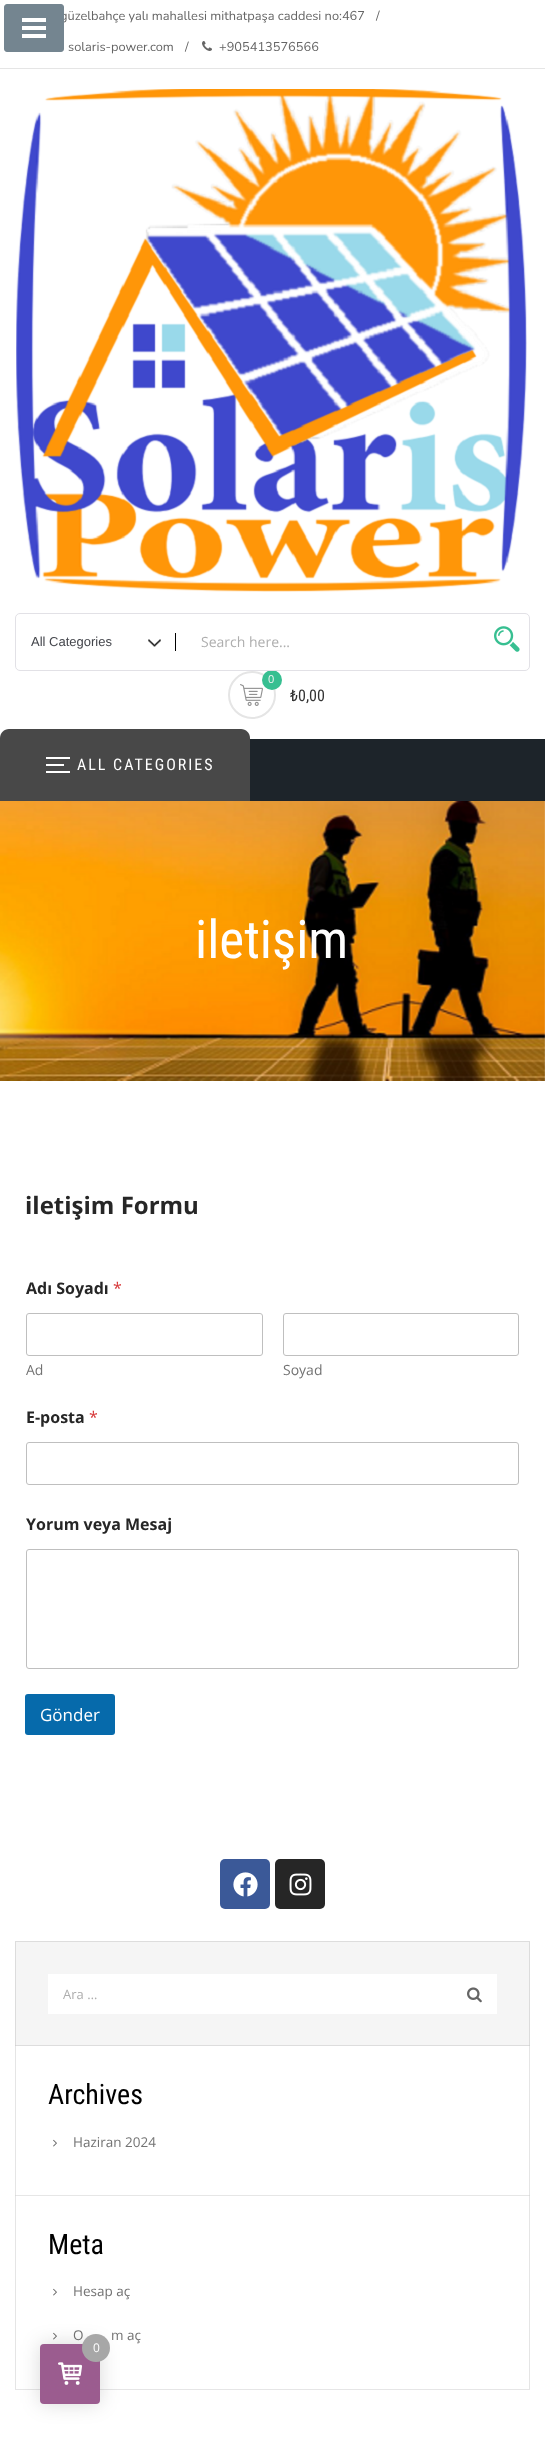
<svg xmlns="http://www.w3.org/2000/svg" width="545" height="2444">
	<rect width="100%" height="100%" fill="#FFFFFF" />
	<rect x="0" y="68" width="545" height="1" fill="#E5E5E5" />
	<g font-family="Nunito" font-size="12.8" fill="#656565">
		<text x="60" y="20">güzelbahçe yalı mahallesi mithatpaşa caddesi no:467</text>
		<text x="376" y="20">/</text>
		<text x="68" y="51">solaris-power.com</text>
		<text x="185" y="51">/</text>
	</g>
	<image x="202" y="41" width="10" height="10" href="assets/img1.png" />
	<text x="219" y="51" font-family="Nunito" font-size="12.8" fill="#656565">+905413576566</text>
	<image x="16" y="89" width="511" height="503" href="assets/img2.png" />
	<circle cx="252" cy="695" r="23" fill="none" stroke="#E5E5E5" stroke-width="2" />
	<image x="240" y="684" width="23" height="22" href="assets/img5.png" />
	<circle cx="272" cy="680" r="10" fill="#37BF91" />
	<rect x="15.5" y="613.5" width="514" height="57" rx="4.5" fill="#FFFFFF" stroke="#E2E1E6" />
	<text x="31" y="646" font-family="Liberation Sans" font-size="13" fill="#43454B">All Categories</text>
	<image x="148" y="639" width="13" height="8" href="assets/img3.png" />
	<rect x="175" y="633" width="1" height="18" fill="#000000" />
	<text x="201" y="647" font-family="Open Sans" font-size="14" fill="#AEAEAE">Search here...</text>
	<image x="494" y="626" width="26" height="26" href="assets/img4.png" />
	<text x="268" y="683" font-family="Open Sans" font-size="11" fill="#F4F4F4">0</text>
	<text x="290" y="701" font-family="Roboto Condensed" font-size="16" fill="#333333">₺0,00</text>
	<rect x="250" y="739" width="295" height="62" fill="#1D242A" />
	<rect x="4.5" y="4.5" width="59" height="47" rx="2.5" fill="#748590" stroke="#748590" />
	<rect x="22" y="26" width="24" height="4" fill="#FFFFFF" />
	<rect x="22" y="18" width="24" height="4" fill="#FFFFFF" />
	<rect x="22" y="34" width="24" height="4" fill="#FFFFFF" />
	<path d="M9 729H241C246 729 250 733 250 738V801H0V738C0 733 4 729 9 729Z" fill="#484848" />
	<rect x="46" y="764" width="18" height="2" fill="#FFFFFF" />
	<rect x="46" y="757" width="24" height="2" fill="#FFFFFF" />
	<rect x="46" y="771" width="24" height="2" fill="#FFFFFF" />
	<text x="77" y="770" font-family="Roboto Condensed" font-size="16" letter-spacing="2" fill="#FFFFFF">ALL CATEGORIES</text>
	<image x="0" y="801" width="545" height="280" href="assets/img6.png" />
	<text x="195" y="958" font-family="Roboto Condensed" font-size="53" fill="#FFFFFF">iletişim</text>
	<text x="25" y="1214" font-family="Open Sans" font-size="24" font-weight="700" fill="#262626">iletişim Formu</text>
	<text x="26" y="1294" font-family="Open Sans" font-size="16" font-weight="700" fill="#262626">Adı Soyadı</text>
	<text x="113" y="1294" font-family="Open Sans" font-size="16" fill="#D63637">*</text>
	<rect x="26.5" y="1313.5" width="236" height="42" rx="2.5" fill="none" stroke="#BFBFBF" />
	<text x="26" y="1375" font-family="Open Sans" font-size="14" fill="#737373">Ad</text>
	<rect x="283.5" y="1313.5" width="235" height="42" rx="2.5" fill="none" stroke="#BFBFBF" />
	<text x="283" y="1375" font-family="Open Sans" font-size="14" fill="#737373">Soyad</text>
	<text x="26" y="1423" font-family="Open Sans" font-size="16" font-weight="700" fill="#262626">E-posta</text>
	<text x="89" y="1423" font-family="Open Sans" font-size="16" fill="#D63637">*</text>
	<rect x="26.5" y="1442.5" width="492" height="42" rx="2.5" fill="none" stroke="#BFBFBF" />
	<text x="26" y="1530" font-family="Open Sans" font-size="16" font-weight="700" fill="#262626">Yorum veya Mesaj</text>
	<rect x="26.5" y="1549.5" width="492" height="119" rx="2.5" fill="none" stroke="#BFBFBF" />
	<rect x="25" y="1694" width="90" height="41" rx="3" fill="#066AAB" />
	<text x="40" y="1721" font-family="Open Sans" font-size="17" fill="#FFFFFF">Gönder</text>
	<rect x="220" y="1859" width="50" height="50" rx="5" fill="#3B5998" />
	<image x="233" y="1872" width="25" height="25" href="assets/img7.png" />
	<rect x="275" y="1859" width="50" height="50" rx="5" fill="#262626" />
	<image x="289" y="1873" width="23" height="23" href="assets/img8.png" />
	<rect x="15" y="2389" width="515" height="1" fill="#E6E6E6" />
	<rect x="15" y="1941" width="515" height="105" fill="#F5F5F5" />
	<path d="M15 1941H530L529 1942H16Z" fill="#DDDDDD" />
	<path d="M530 1941V2046H529V1942Z" fill="#000000" fill-opacity="0.1" />
	<path d="M15 2046V1941L16 1942V2046Z" fill="#000000" fill-opacity="0.1" />
	<rect x="48" y="1974" width="449" height="40" fill="#FFFFFF" />
	<text x="63" y="1999" font-family="Open Sans" font-size="13" fill="#AEAEAE">Ara …</text>
	<image x="467" y="1987" width="15" height="16" href="assets/img9.png" />
	<path d="M15 2045H530L529 2046H16Z" fill="#DDDDDD" />
	<path d="M530 2045V2196H529V2046Z" fill="#000000" fill-opacity="0.1" />
	<path d="M15 2196V2045L16 2046V2196Z" fill="#000000" fill-opacity="0.1" />
	<text x="48" y="2104" font-family="Roboto Condensed" font-size="28" fill="#000000">Archives</text>
	<image x="53" y="2139" width="4" height="8" href="assets/img10.png" />
	<text x="73" y="2147" font-family="Open Sans" font-size="13.5" fill="#737373">Haziran 2024</text>
	<path d="M15 2195H530L529 2196H16Z" fill="#E6E6E6" />
	<path d="M530 2195V2389H529V2196Z" fill="#000000" fill-opacity="0.1" />
	<path d="M15 2389V2195L16 2196V2389Z" fill="#000000" fill-opacity="0.1" />
	<text x="48" y="2254" font-family="Roboto Condensed" font-size="28" fill="#000000">Meta</text>
	<image x="53" y="2288" width="4" height="8" href="assets/img10.png" />
	<text x="73" y="2296" font-family="Open Sans" font-size="13.5" fill="#737373">Hesap aç</text>
	<image x="53" y="2332" width="4" height="8" href="assets/img10.png" />
	<g font-family="Open Sans" font-size="13.5" fill="#737373">
		<text x="73" y="2340">O</text>
		<text x="111" y="2340">m aç</text>
	</g>
	<rect x="40" y="2344" width="60" height="60" rx="4" fill="#000000" fill-opacity="0.15" filter="blur(10px)" />
	<rect x="40" y="2344" width="60" height="60" rx="4" fill="#9B5C8F" />
	<circle cx="96" cy="2348" r="14" fill="#A7A7A7" />
	<text x="93" y="2352" font-family="Open Sans" font-size="12" fill="#FFFFFF">0</text>
	<image x="58" y="2362" width="25" height="23" href="assets/img11.png" />
</svg>
